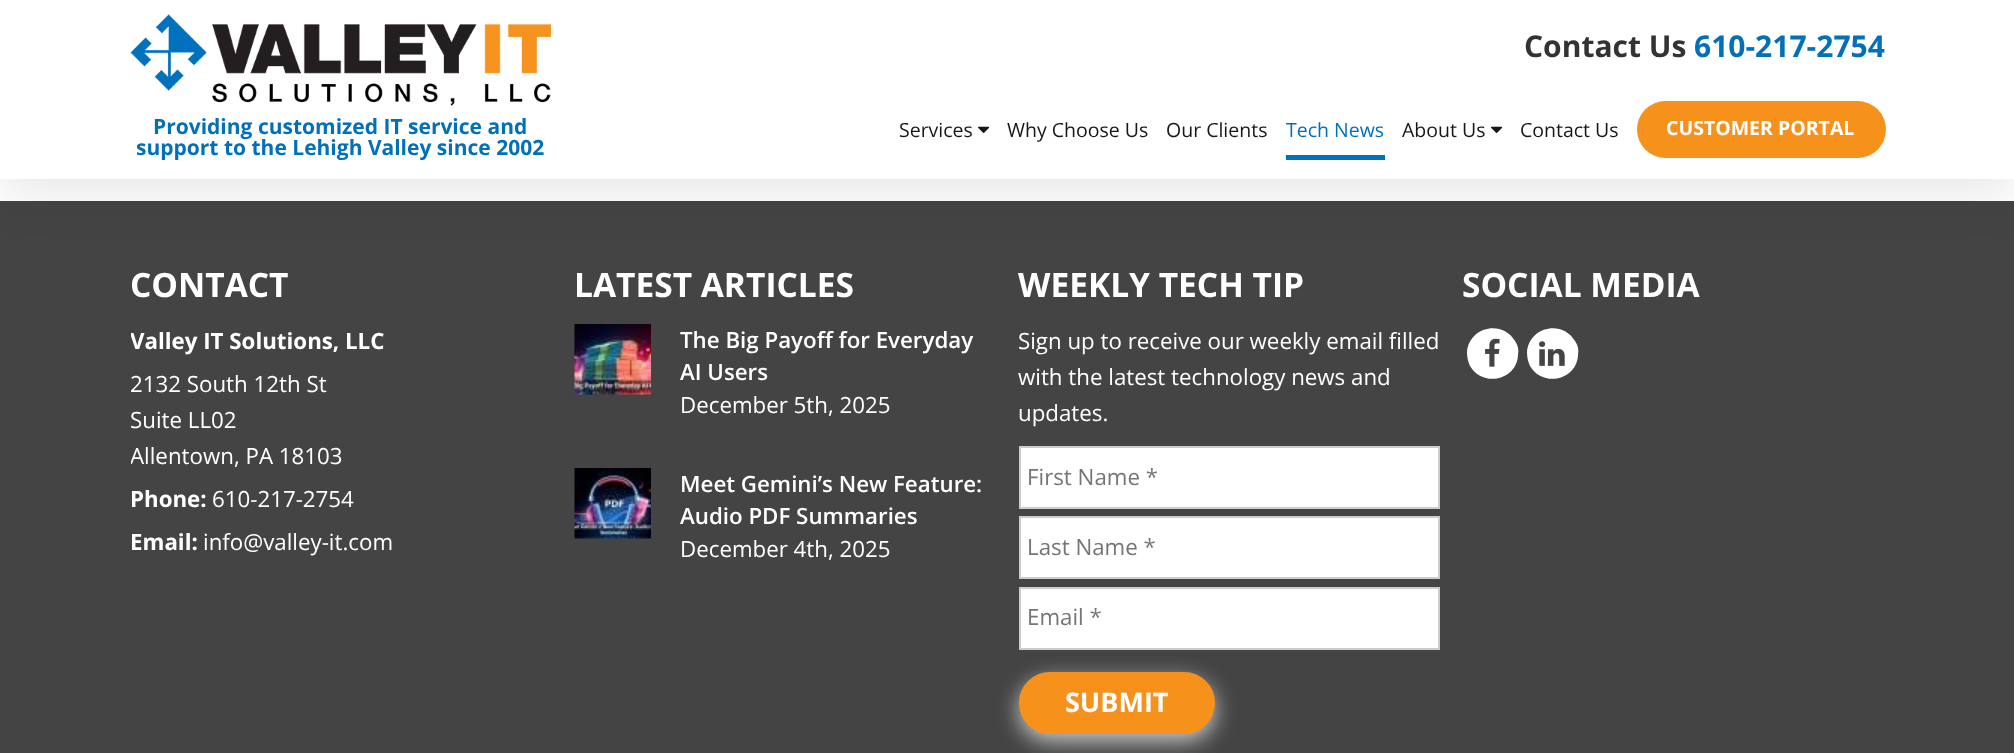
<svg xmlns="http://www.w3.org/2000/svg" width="2014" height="753">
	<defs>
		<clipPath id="clip1"><rect x="131" y="216" width="1755" height="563" /></clipPath>
	</defs>
	<rect width="100%" height="100%" fill="#FFFFFF" />
	<rect x="0" y="201" width="2014" height="552" fill="#444444" />
	<rect x="0" y="12" width="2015" height="179" fill="#000000" fill-opacity="0.1" filter="blur(24px)" />
	<rect x="0" y="0" width="2014" height="179" fill="#FFFFFF" />
	<text x="1524" y="57" font-family="Open Sans" font-size="30" font-weight="700" fill="#333333">Contact Us</text>
	<text x="1694" y="57" font-family="Open Sans" font-size="30" font-weight="700" fill="#0070BB">610-217-2754</text>
	<image x="130" y="14" width="421" height="92" href="assets/img1.png" />
	<g font-family="Open Sans" font-size="21" font-weight="700" fill="#0070BB">
		<text x="153" y="134">Providing customized IT service and</text>
		<text x="136" y="155">support to the Lehigh Valley since 2002</text>
	</g>
	<text x="899" y="137" font-family="Open Sans" font-size="19.5" fill="#171717">Services</text>
	<image x="978" y="126" width="12" height="7" href="assets/img2.png" />
	<g font-family="Open Sans" font-size="19.5" fill="#171717">
		<text x="1007" y="137">Why Choose Us</text>
		<text x="1166" y="137">Our Clients</text>
	</g>
	<text x="1286" y="137" font-family="Open Sans" font-size="19.5" fill="#0070BB">Tech News</text>
	<rect x="1286" y="155" width="99" height="5" fill="#0070BB" />
	<text x="1402" y="137" font-family="Open Sans" font-size="19.5" fill="#171717">About Us</text>
	<image x="1491" y="126" width="12" height="7" href="assets/img2.png" />
	<text x="1520" y="137" font-family="Open Sans" font-size="19.5" fill="#171717">Contact Us</text>
	<rect x="1637" y="101" width="249" height="57" rx="28.5" fill="#F6921C" />
	<text x="1666" y="135" font-family="Open Sans" font-size="19.5" font-weight="700" fill="#FFFFFF">CUSTOMER PORTAL</text>
	<text x="130" y="297" font-family="Open Sans" font-size="33.5" font-weight="700" fill="#FFFFFF">CONTACT</text>
	<g clip-path="url(#clip1)">
		<text x="130" y="349" font-family="Open Sans" font-size="22.3" font-weight="700" fill="#FFFFFF">Valley IT Solutions, LLC</text>
	</g>
	<g font-family="Open Sans" font-size="22.3" fill="#FFFFFF">
		<text x="130" y="392">2132 South 12th St</text>
		<text x="130" y="428">Suite LL02</text>
	</g>
	<g clip-path="url(#clip1)">
		<text x="130" y="464" font-family="Open Sans" font-size="22.3" fill="#FFFFFF">Allentown</text>
	</g>
	<text x="234" y="464" font-family="Open Sans" font-size="22.3" fill="#FFFFFF">, PA 18103</text>
	<text x="130" y="507" font-family="Open Sans" font-size="22.3" font-weight="700" fill="#FFFFFF">Phone:</text>
	<text x="212" y="507" font-family="Open Sans" font-size="22.3" fill="#FFFFFF">610-217-2754</text>
	<text x="130" y="550" font-family="Open Sans" font-size="22.3" font-weight="700" fill="#FFFFFF">Email:</text>
	<text x="203" y="550" font-family="Open Sans" font-size="22.3" fill="#FFFFFF">info@valley-it.com</text>
	<text x="574" y="297" font-family="Open Sans" font-size="33.5" font-weight="700" fill="#FFFFFF">LATEST ARTICLES</text>
	<image x="574" y="324" width="77" height="71" href="assets/img3.png" />
	<g font-family="Open Sans" font-size="22.3" font-weight="600" fill="#FFFFFF">
		<text x="680" y="348">The Big Payoff for Everyday</text>
		<text x="680" y="380">AI Users</text>
	</g>
	<text x="680" y="413" font-family="Open Sans" font-size="22.3" fill="#FFFFFF">December 5th, 2025</text>
	<image x="574" y="468" width="77" height="71" href="assets/img4.png" />
	<g font-family="Open Sans" font-size="22.3" font-weight="600" fill="#FFFFFF">
		<text x="680" y="492">Meet Gemini’s New Feature:</text>
		<text x="680" y="524">Audio PDF Summaries</text>
	</g>
	<text x="680" y="557" font-family="Open Sans" font-size="22.3" fill="#FFFFFF">December 4th, 2025</text>
	<text x="1018" y="297" font-family="Open Sans" font-size="33.5" font-weight="700" fill="#FFFFFF">WEEKLY TECH TIP</text>
	<g font-family="Open Sans" font-size="22.3" fill="#FFFFFF">
		<text x="1018" y="349">Sign up to receive our weekly email filled</text>
		<text x="1018" y="385">with the latest technology news and</text>
		<text x="1018" y="421">updates.</text>
	</g>
	<rect x="1020" y="447" width="419" height="61" fill="#FFFFFF" stroke="#CCCCCC" stroke-width="2" />
	<text x="1027" y="485" font-family="Open Sans" font-size="22.3" fill="#757575">First Name *</text>
	<rect x="1020" y="517" width="419" height="61" fill="#FFFFFF" stroke="#CCCCCC" stroke-width="2" />
	<text x="1027" y="555" font-family="Open Sans" font-size="22.3" fill="#757575">Last Name *</text>
	<rect x="1020" y="588" width="419" height="61" fill="#FFFFFF" stroke="#CCCCCC" stroke-width="2" />
	<text x="1027" y="625" font-family="Open Sans" font-size="22.3" fill="#757575">Email *</text>
	<rect x="1019" y="680" width="196" height="61" rx="30.5" fill="#CCCCCC" filter="blur(11px)" />
	<rect x="1020" y="673" width="194" height="60" rx="30" fill="#F6921C" stroke="#F6921C" stroke-width="2" />
	<text x="1065" y="712" font-family="Open Sans" font-size="27" font-weight="700" fill="#FFFFFF">SUBMIT</text>
	<text x="1462" y="297" font-family="Open Sans" font-size="33.5" font-weight="700" fill="#FFFFFF">SOCIAL MEDIA</text>
	<path d="M1515 341C1518 345 1519 350 1518 355C1517 380 1483 388 1470 366C1468 362 1467 357 1467 352C1469 327 1502 319 1515 341Z" fill="#FFFFFF" />
	<image x="1485" y="338" width="15" height="29" href="assets/img5.png" />
	<path d="M1575 341C1578 345 1579 350 1578 355C1577 380 1543 388 1530 366C1528 362 1527 357 1527 352C1529 327 1562 319 1575 341Z" fill="#FFFFFF" />
	<image x="1539" y="341" width="26" height="25" href="assets/img6.png" />
</svg>
